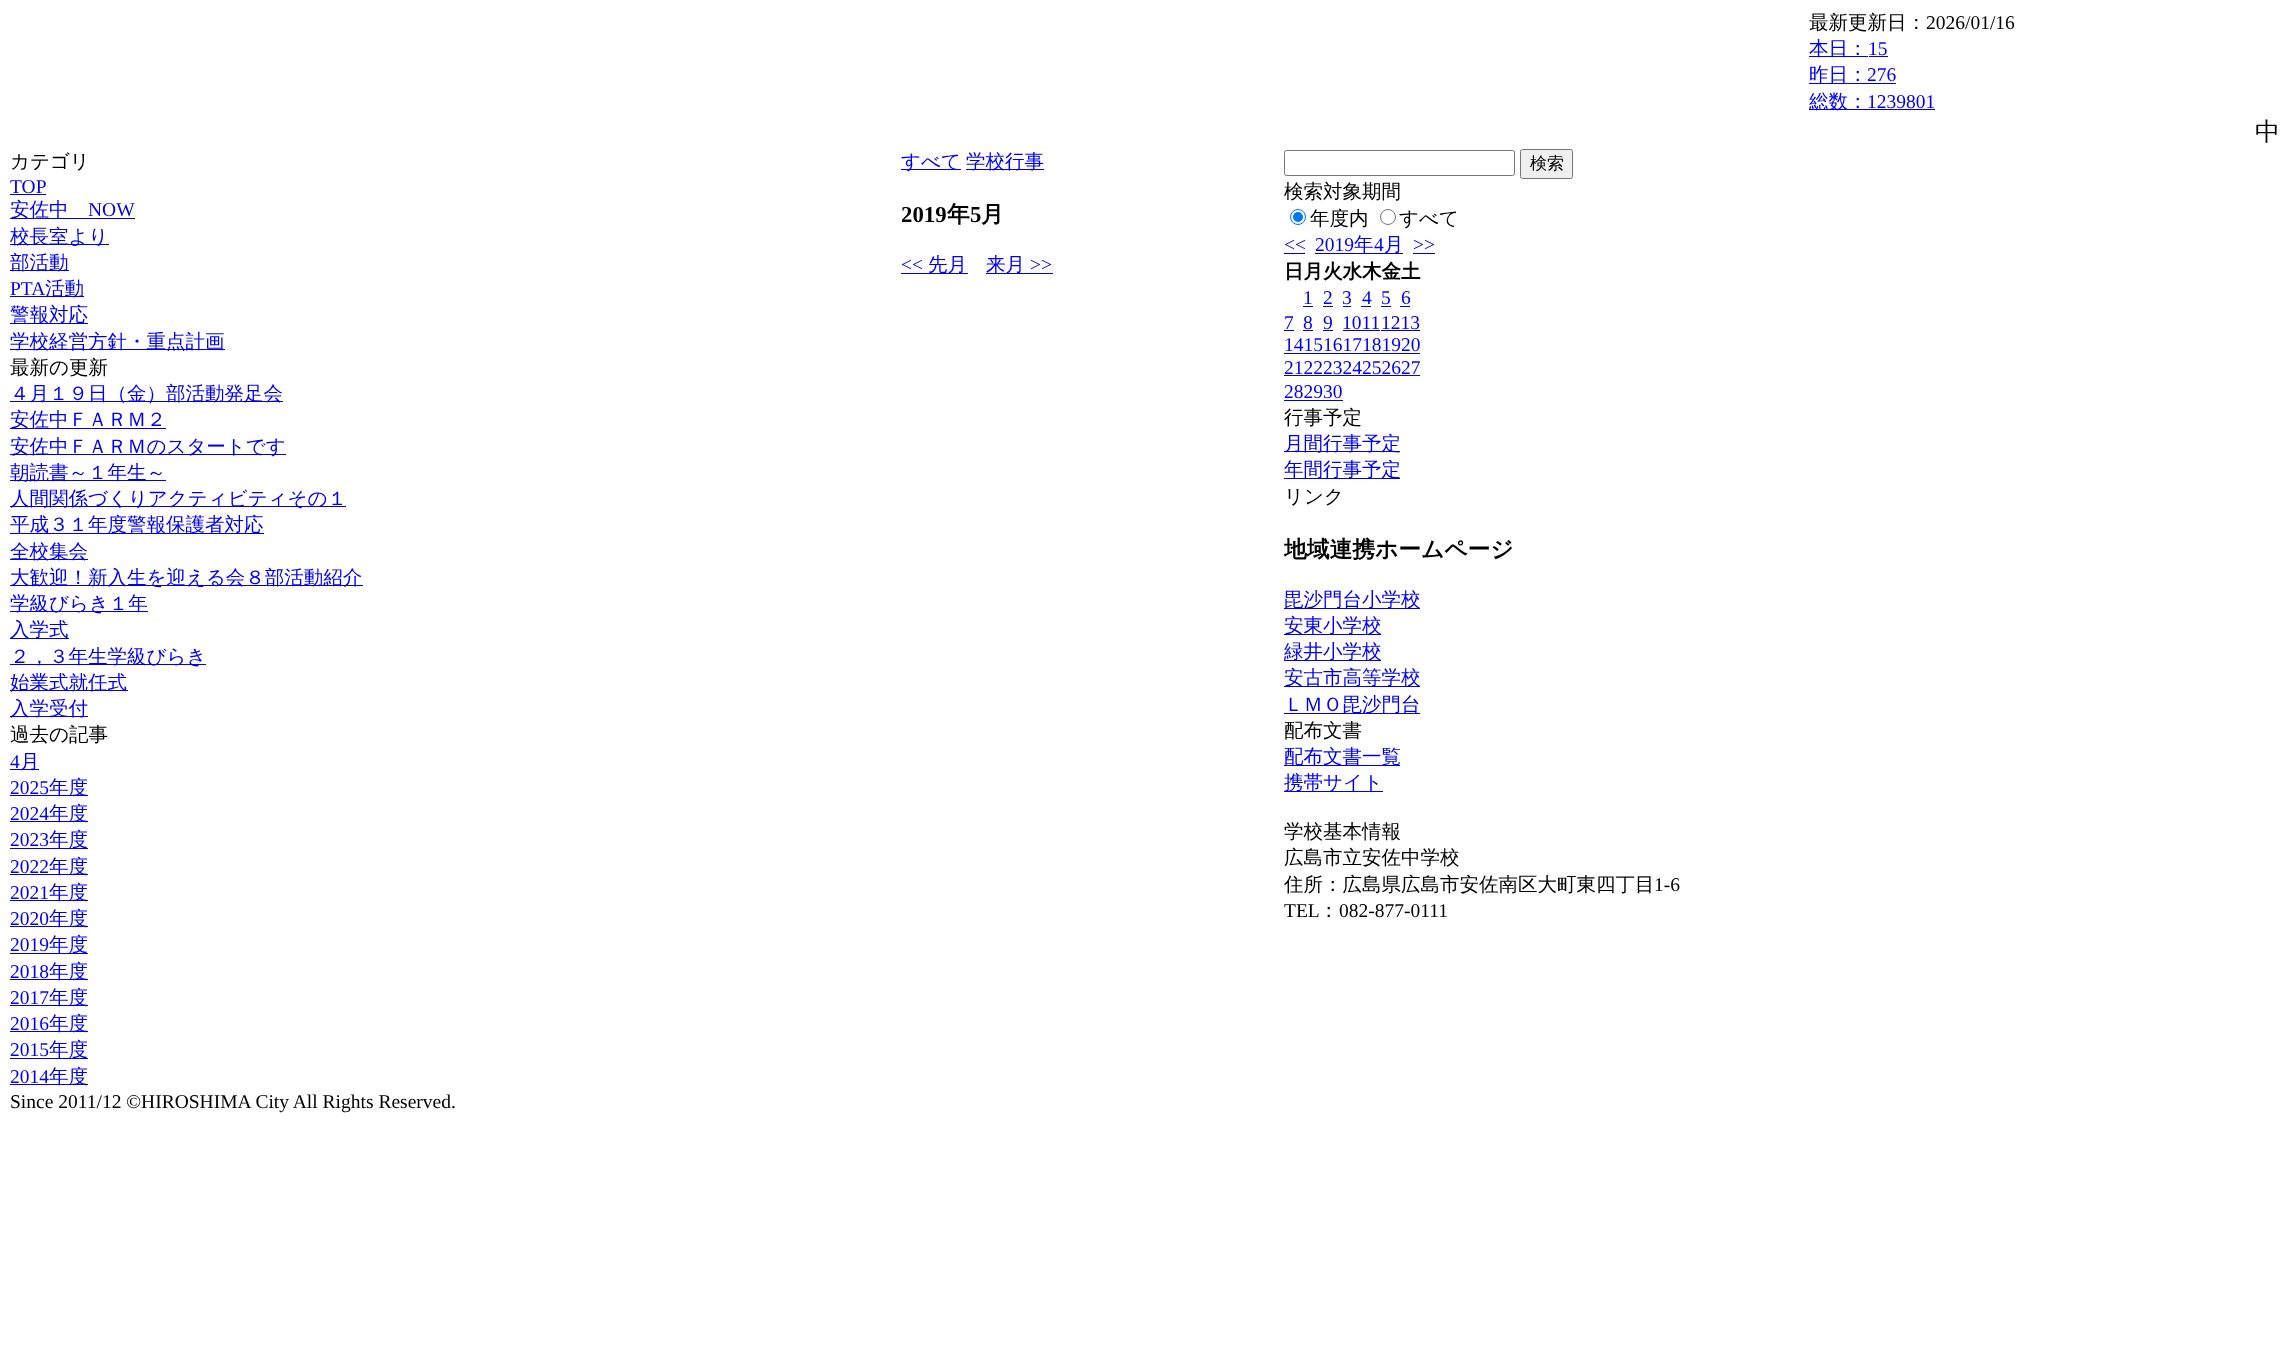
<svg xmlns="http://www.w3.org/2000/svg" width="2296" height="1347">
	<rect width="100%" height="100%" fill="#FFFFFF" />
	<text x="1809" y="29" font-family="WenQuanYi Zen Hei" font-size="19.5" font-weight="500" fill="#000000">最新更新日：</text>
	<text x="1926" y="29" font-family="Liberation Serif" font-size="19.5" fill="#000000">2026/01/16</text>
	<rect x="1809" y="56" width="59" height="1" fill="#0000EE" />
	<text x="1809" y="55" font-family="WenQuanYi Zen Hei" font-size="19.5" font-weight="500" fill="#0000EE">本日：</text>
	<text x="1868" y="55" font-family="Liberation Serif" font-size="19.5" fill="#0000EE">15</text>
	<rect x="1869" y="56" width="19" height="1" fill="#0000EE" />
	<rect x="1809" y="83" width="87" height="1" fill="#0000EE" />
	<text x="1809" y="81" font-family="WenQuanYi Zen Hei" font-size="19.5" font-weight="500" fill="#0000EE">昨日：</text>
	<text x="1867" y="81" font-family="Liberation Serif" font-size="19.5" fill="#0000EE">276</text>
	<rect x="1809" y="109" width="126" height="1" fill="#0000EE" />
	<text x="1809" y="108" font-family="WenQuanYi Zen Hei" font-size="19.5" font-weight="500" fill="#0000EE">総数：</text>
	<text x="1867" y="108" font-family="Liberation Serif" font-size="19.5" fill="#0000EE">1239801</text>
	<text x="2255" y="140" font-family="WenQuanYi Zen Hei" font-size="25" font-weight="500" fill="#000000">中</text>
	<text x="10" y="168" font-family="WenQuanYi Zen Hei" font-size="19.5" font-weight="500" fill="#000000">カテゴリ</text>
	<text x="10" y="193" font-family="Liberation Serif" font-size="19.5" fill="#0000EE">TOP</text>
	<rect x="10" y="194" width="36" height="1" fill="#0000EE" />
	<rect x="10" y="218" width="125" height="1" fill="#0000EE" />
	<text x="10" y="216" font-family="WenQuanYi Zen Hei" font-size="19.5" font-weight="500" fill="#0000EE">安佐中</text>
	<text x="88" y="216" font-family="Liberation Serif" font-size="19.5" fill="#0000EE">NOW</text>
	<rect x="10" y="244" width="99" height="1" fill="#0000EE" />
	<text x="10" y="243" font-family="WenQuanYi Zen Hei" font-size="19.5" font-weight="500" fill="#0000EE">校長室より</text>
	<rect x="10" y="270" width="59" height="1" fill="#0000EE" />
	<text x="10" y="269" font-family="WenQuanYi Zen Hei" font-size="19.5" font-weight="500" fill="#0000EE">部活動</text>
	<text x="10" y="295" font-family="Liberation Serif" font-size="19.5" fill="#0000EE">PTA</text>
	<rect x="10" y="296" width="74" height="1" fill="#0000EE" />
	<text x="45" y="295" font-family="WenQuanYi Zen Hei" font-size="19.5" font-weight="500" fill="#0000EE">活動</text>
	<rect x="10" y="323" width="78" height="1" fill="#0000EE" />
	<text x="10" y="321" font-family="WenQuanYi Zen Hei" font-size="19.5" font-weight="500" fill="#0000EE">警報対応</text>
	<rect x="10" y="349" width="215" height="1" fill="#0000EE" />
	<text x="10" y="348" font-family="WenQuanYi Zen Hei" font-size="19.5" font-weight="500" fill="#0000EE">学校経営方針・重点計画</text>
	<text x="10" y="374" font-family="WenQuanYi Zen Hei" font-size="19.5" font-weight="500" fill="#000000">最新の更新</text>
	<rect x="10" y="401" width="273" height="1" fill="#0000EE" />
	<text x="10" y="400" font-family="WenQuanYi Zen Hei" font-size="19.5" font-weight="500" fill="#0000EE">４月１９日（金）部活動発足会</text>
	<rect x="10" y="428" width="156" height="1" fill="#0000EE" />
	<text x="10" y="426" font-family="WenQuanYi Zen Hei" font-size="19.5" font-weight="500" fill="#0000EE">安佐中ＦＡＲＭ２</text>
	<rect x="10" y="454" width="276" height="1" fill="#0000EE" />
	<text x="10" y="453" font-family="WenQuanYi Zen Hei" font-size="19.5" font-weight="500" fill="#0000EE">安佐中ＦＡＲＭのスタートです</text>
	<rect x="10" y="480" width="156" height="1" fill="#0000EE" />
	<text x="10" y="479" font-family="WenQuanYi Zen Hei" font-size="19.5" font-weight="500" fill="#0000EE">朝読書～１年生～</text>
	<rect x="10" y="506" width="336" height="1" fill="#0000EE" />
	<text x="10" y="505" font-family="WenQuanYi Zen Hei" font-size="19.5" font-weight="500" fill="#0000EE">人間関係づくりアクティビティその１</text>
	<rect x="10" y="533" width="254" height="1" fill="#0000EE" />
	<text x="10" y="531" font-family="WenQuanYi Zen Hei" font-size="19.5" font-weight="500" fill="#0000EE">平成３１年度警報保護者対応</text>
	<rect x="10" y="559" width="78" height="1" fill="#0000EE" />
	<text x="10" y="558" font-family="WenQuanYi Zen Hei" font-size="19.5" font-weight="500" fill="#0000EE">全校集会</text>
	<rect x="10" y="585" width="353" height="1" fill="#0000EE" />
	<text x="10" y="584" font-family="WenQuanYi Zen Hei" font-size="19.5" font-weight="500" fill="#0000EE">大歓迎！新入生を迎える会８部活動紹介</text>
	<rect x="10" y="611" width="138" height="1" fill="#0000EE" />
	<text x="10" y="610" font-family="WenQuanYi Zen Hei" font-size="19.5" font-weight="500" fill="#0000EE">学級びらき１年</text>
	<rect x="10" y="638" width="59" height="1" fill="#0000EE" />
	<text x="10" y="636" font-family="WenQuanYi Zen Hei" font-size="19.5" font-weight="500" fill="#0000EE">入学式</text>
	<rect x="10" y="664" width="196" height="1" fill="#0000EE" />
	<text x="10" y="663" font-family="WenQuanYi Zen Hei" font-size="19.5" font-weight="500" fill="#0000EE">２，３年生学級びらき</text>
	<rect x="10" y="690" width="118" height="1" fill="#0000EE" />
	<text x="10" y="689" font-family="WenQuanYi Zen Hei" font-size="19.5" font-weight="500" fill="#0000EE">始業式就任式</text>
	<rect x="10" y="716" width="78" height="1" fill="#0000EE" />
	<text x="10" y="715" font-family="WenQuanYi Zen Hei" font-size="19.5" font-weight="500" fill="#0000EE">入学受付</text>
	<text x="10" y="741" font-family="WenQuanYi Zen Hei" font-size="19.5" font-weight="500" fill="#000000">過去の記事</text>
	<text x="10" y="768" font-family="Liberation Serif" font-size="19.5" fill="#0000EE">4</text>
	<rect x="10" y="769" width="29" height="1" fill="#0000EE" />
	<text x="20" y="768" font-family="WenQuanYi Zen Hei" font-size="19.5" font-weight="500" fill="#0000EE">月</text>
	<text x="10" y="794" font-family="Liberation Serif" font-size="19.5" fill="#0000EE">2025</text>
	<rect x="10" y="795" width="78" height="1" fill="#0000EE" />
	<text x="49" y="794" font-family="WenQuanYi Zen Hei" font-size="19.5" font-weight="500" fill="#0000EE">年度</text>
	<text x="10" y="820" font-family="Liberation Serif" font-size="19.5" fill="#0000EE">2024</text>
	<rect x="10" y="821" width="78" height="1" fill="#0000EE" />
	<text x="49" y="820" font-family="WenQuanYi Zen Hei" font-size="19.5" font-weight="500" fill="#0000EE">年度</text>
	<text x="10" y="846" font-family="Liberation Serif" font-size="19.5" fill="#0000EE">2023</text>
	<rect x="10" y="848" width="78" height="1" fill="#0000EE" />
	<text x="49" y="846" font-family="WenQuanYi Zen Hei" font-size="19.5" font-weight="500" fill="#0000EE">年度</text>
	<text x="10" y="873" font-family="Liberation Serif" font-size="19.5" fill="#0000EE">2022</text>
	<rect x="10" y="874" width="78" height="1" fill="#0000EE" />
	<text x="49" y="873" font-family="WenQuanYi Zen Hei" font-size="19.5" font-weight="500" fill="#0000EE">年度</text>
	<text x="10" y="899" font-family="Liberation Serif" font-size="19.5" fill="#0000EE">2021</text>
	<rect x="10" y="900" width="78" height="1" fill="#0000EE" />
	<text x="49" y="899" font-family="WenQuanYi Zen Hei" font-size="19.5" font-weight="500" fill="#0000EE">年度</text>
	<text x="10" y="925" font-family="Liberation Serif" font-size="19.5" fill="#0000EE">2020</text>
	<rect x="10" y="926" width="78" height="1" fill="#0000EE" />
	<text x="49" y="925" font-family="WenQuanYi Zen Hei" font-size="19.5" font-weight="500" fill="#0000EE">年度</text>
	<text x="10" y="951" font-family="Liberation Serif" font-size="19.5" fill="#0000EE">2019</text>
	<rect x="10" y="953" width="78" height="1" fill="#0000EE" />
	<text x="49" y="951" font-family="WenQuanYi Zen Hei" font-size="19.5" font-weight="500" fill="#0000EE">年度</text>
	<text x="10" y="978" font-family="Liberation Serif" font-size="19.5" fill="#0000EE">2018</text>
	<rect x="10" y="979" width="78" height="1" fill="#0000EE" />
	<text x="49" y="978" font-family="WenQuanYi Zen Hei" font-size="19.5" font-weight="500" fill="#0000EE">年度</text>
	<text x="10" y="1004" font-family="Liberation Serif" font-size="19.5" fill="#0000EE">2017</text>
	<rect x="10" y="1005" width="78" height="1" fill="#0000EE" />
	<text x="49" y="1004" font-family="WenQuanYi Zen Hei" font-size="19.5" font-weight="500" fill="#0000EE">年度</text>
	<text x="10" y="1030" font-family="Liberation Serif" font-size="19.5" fill="#0000EE">2016</text>
	<rect x="10" y="1031" width="78" height="1" fill="#0000EE" />
	<text x="49" y="1030" font-family="WenQuanYi Zen Hei" font-size="19.5" font-weight="500" fill="#0000EE">年度</text>
	<text x="10" y="1056" font-family="Liberation Serif" font-size="19.5" fill="#0000EE">2015</text>
	<rect x="10" y="1058" width="78" height="1" fill="#0000EE" />
	<text x="49" y="1056" font-family="WenQuanYi Zen Hei" font-size="19.5" font-weight="500" fill="#0000EE">年度</text>
	<text x="10" y="1083" font-family="Liberation Serif" font-size="19.5" fill="#0000EE">2014</text>
	<rect x="10" y="1084" width="78" height="1" fill="#0000EE" />
	<text x="49" y="1083" font-family="WenQuanYi Zen Hei" font-size="19.5" font-weight="500" fill="#0000EE">年度</text>
	<rect x="901" y="169" width="60" height="1" fill="#0000EE" />
	<text x="901" y="168" font-family="WenQuanYi Zen Hei" font-size="19.5" font-weight="500" fill="#0000EE">すべて</text>
	<rect x="966" y="169" width="78" height="1" fill="#0000EE" />
	<text x="966" y="168" font-family="WenQuanYi Zen Hei" font-size="19.5" font-weight="500" fill="#0000EE">学校行事</text>
	<text x="901" y="222" font-family="Liberation Serif" font-size="22.75" font-weight="700" fill="#000000">2019</text>
	<text x="947" y="222" font-family="WenQuanYi Zen Hei" font-size="22.75" font-weight="700" fill="#000000">年</text>
	<text x="970" y="222" font-family="Liberation Serif" font-size="22.75" font-weight="700" fill="#000000">5</text>
	<text x="981" y="222" font-family="WenQuanYi Zen Hei" font-size="22.75" font-weight="700" fill="#000000">月</text>
	<text x="901" y="271" font-family="Liberation Serif" font-size="19.5" fill="#0000EE">&lt;&lt;</text>
	<rect x="901" y="273" width="67" height="1" fill="#0000EE" />
	<text x="928" y="271" font-family="WenQuanYi Zen Hei" font-size="19.5" font-weight="500" fill="#0000EE">先月</text>
	<rect x="986" y="273" width="67" height="1" fill="#0000EE" />
	<text x="986" y="271" font-family="WenQuanYi Zen Hei" font-size="19.5" font-weight="500" fill="#0000EE">来月</text>
	<text x="1030" y="271" font-family="Liberation Serif" font-size="19.5" fill="#0000EE">&gt;&gt;</text>
	<rect x="1284.5" y="150.5" width="230" height="25" rx="2" fill="none" stroke="#767676" />
	<rect x="1520.5" y="149.5" width="52" height="29" rx="2" fill="#EFEFEF" stroke="#767676" />
	<text x="1530" y="169" font-family="WenQuanYi Zen Hei" font-size="17" font-weight="500" fill="#000000">検索</text>
	<text x="1284" y="198" font-family="WenQuanYi Zen Hei" font-size="19.5" font-weight="500" fill="#000000">検索対象期間</text>
	<circle cx="1298" cy="217" r="7.5" fill="none" stroke="#0075FF" />
	<circle cx="1298" cy="217" r="5" fill="#0075FF" />
	<text x="1310" y="225" font-family="WenQuanYi Zen Hei" font-size="19.5" font-weight="500" fill="#000000">年度内</text>
	<circle cx="1388" cy="217" r="7.5" fill="none" stroke="#767676" />
	<text x="1399" y="225" font-family="WenQuanYi Zen Hei" font-size="19.5" font-weight="500" fill="#000000">すべて</text>
	<text x="1284" y="251" font-family="Liberation Serif" font-size="19.5" fill="#0000EE">&lt;&lt;</text>
	<rect x="1284" y="253" width="21" height="1" fill="#0000EE" />
	<text x="1315" y="251" font-family="Liberation Serif" font-size="19.5" fill="#0000EE">2019</text>
	<rect x="1315" y="253" width="88" height="1" fill="#0000EE" />
	<text x="1354" y="251" font-family="WenQuanYi Zen Hei" font-size="19.5" font-weight="500" fill="#0000EE">年</text>
	<text x="1374" y="251" font-family="Liberation Serif" font-size="19.5" fill="#0000EE">4</text>
	<text x="1384" y="251" font-family="WenQuanYi Zen Hei" font-size="19.5" font-weight="500" fill="#0000EE">月</text>
	<text x="1413" y="251" font-family="Liberation Serif" font-size="19.5" fill="#0000EE">&gt;&gt;</text>
	<rect x="1413" y="253" width="22" height="1" fill="#0000EE" />
	<text x="1284" y="278" font-family="WenQuanYi Zen Hei" font-size="19.5" font-weight="700" fill="#000000">日月火水木金土</text>
	<text x="1303" y="304" font-family="Liberation Serif" font-size="19.5" fill="#0000EE">1</text>
	<rect x="1303" y="306" width="10" height="1" fill="#0000EE" />
	<text x="1323" y="304" font-family="Liberation Serif" font-size="19.5" fill="#0000EE">2</text>
	<rect x="1323" y="306" width="10" height="1" fill="#0000EE" />
	<text x="1342" y="304" font-family="Liberation Serif" font-size="19.5" fill="#0000EE">3</text>
	<rect x="1343" y="306" width="8" height="1" fill="#0000EE" />
	<text x="1362" y="304" font-family="Liberation Serif" font-size="19.5" fill="#0000EE">4</text>
	<rect x="1361" y="306" width="10" height="1" fill="#0000EE" />
	<text x="1381" y="304" font-family="Liberation Serif" font-size="19.5" fill="#0000EE">5</text>
	<rect x="1381" y="306" width="10" height="1" fill="#0000EE" />
	<text x="1401" y="304" font-family="Liberation Serif" font-size="19.5" fill="#0000EE">6</text>
	<rect x="1400" y="306" width="10" height="1" fill="#0000EE" />
	<text x="1284" y="329" font-family="Liberation Serif" font-size="19.5" fill="#0000EE">7</text>
	<rect x="1284" y="330" width="10" height="1" fill="#0000EE" />
	<text x="1303" y="329" font-family="Liberation Serif" font-size="19.5" fill="#0000EE">8</text>
	<rect x="1303" y="330" width="10" height="1" fill="#0000EE" />
	<text x="1323" y="329" font-family="Liberation Serif" font-size="19.5" fill="#0000EE">9</text>
	<rect x="1323" y="330" width="10" height="1" fill="#0000EE" />
	<text x="1342" y="329" font-family="Liberation Serif" font-size="19.5" fill="#0000EE">1011</text>
	<rect x="1343" y="330" width="37" height="1" fill="#0000EE" />
	<text x="1381" y="329" font-family="Liberation Serif" font-size="19.5" fill="#0000EE">1213</text>
	<rect x="1381" y="330" width="39" height="1" fill="#0000EE" />
	<text x="1284" y="351" font-family="Liberation Serif" font-size="19.5" fill="#0000EE">14151617181920</text>
	<rect x="1284" y="353" width="136" height="1" fill="#0000EE" />
	<text x="1284" y="374" font-family="Liberation Serif" font-size="19.5" fill="#0000EE">21222324252627</text>
	<rect x="1284" y="375" width="136" height="1" fill="#0000EE" />
	<text x="1284" y="398" font-family="Liberation Serif" font-size="19.5" fill="#0000EE">282930</text>
	<rect x="1284" y="400" width="59" height="1" fill="#0000EE" />
	<text x="1284" y="424" font-family="WenQuanYi Zen Hei" font-size="19.5" font-weight="500" fill="#000000">行事予定</text>
	<rect x="1284" y="451" width="116" height="1" fill="#0000EE" />
	<text x="1284" y="450" font-family="WenQuanYi Zen Hei" font-size="19.5" font-weight="500" fill="#0000EE">月間行事予定</text>
	<rect x="1284" y="478" width="116" height="1" fill="#0000EE" />
	<text x="1284" y="476" font-family="WenQuanYi Zen Hei" font-size="19.5" font-weight="500" fill="#0000EE">年間行事予定</text>
	<text x="1284" y="503" font-family="WenQuanYi Zen Hei" font-size="19.5" font-weight="500" fill="#000000">リンク</text>
	<text x="1284" y="557" font-family="WenQuanYi Zen Hei" font-size="22.75" font-weight="700" fill="#000000">地域連携ホームページ</text>
	<rect x="1284" y="608" width="136" height="1" fill="#0000EE" />
	<text x="1284" y="606" font-family="WenQuanYi Zen Hei" font-size="19.5" font-weight="500" fill="#0000EE">毘沙門台小学校</text>
	<rect x="1284" y="634" width="97" height="1" fill="#0000EE" />
	<text x="1284" y="632" font-family="WenQuanYi Zen Hei" font-size="19.5" font-weight="500" fill="#0000EE">安東小学校</text>
	<rect x="1284" y="660" width="97" height="1" fill="#0000EE" />
	<text x="1284" y="658" font-family="WenQuanYi Zen Hei" font-size="19.5" font-weight="500" fill="#0000EE">緑井小学校</text>
	<rect x="1284" y="686" width="136" height="1" fill="#0000EE" />
	<text x="1284" y="684" font-family="WenQuanYi Zen Hei" font-size="19.5" font-weight="500" fill="#0000EE">安古市高等学校</text>
	<rect x="1284" y="713" width="136" height="1" fill="#0000EE" />
	<text x="1284" y="711" font-family="WenQuanYi Zen Hei" font-size="19.5" font-weight="500" fill="#0000EE">ＬＭＯ毘沙門台</text>
	<text x="1284" y="737" font-family="WenQuanYi Zen Hei" font-size="19.5" font-weight="500" fill="#000000">配布文書</text>
	<rect x="1284" y="765" width="116" height="1" fill="#0000EE" />
	<text x="1284" y="763" font-family="WenQuanYi Zen Hei" font-size="19.5" font-weight="500" fill="#0000EE">配布文書一覧</text>
	<rect x="1284" y="791" width="99" height="1" fill="#0000EE" />
	<text x="1284" y="789" font-family="WenQuanYi Zen Hei" font-size="19.5" font-weight="500" fill="#0000EE">携帯サイト</text>
	<g font-family="WenQuanYi Zen Hei" font-size="19.5" font-weight="500" fill="#000000">
		<text x="1284" y="838">学校基本情報</text>
		<text x="1284" y="864">広島市立安佐中学校</text>
		<text x="1284" y="891">住所：広島県広島市安佐南区大町東四丁目</text>
	</g>
	<g font-family="Liberation Serif" font-size="19.5" fill="#000000">
		<text x="1654" y="891">1-6</text>
		<text x="1284" y="917">TEL</text>
	</g>
	<text x="1319" y="917" font-family="WenQuanYi Zen Hei" font-size="19.5" font-weight="500" fill="#000000">：</text>
	<g font-family="Liberation Serif" font-size="19.5" fill="#000000">
		<text x="1339" y="917">082-877-0111</text>
		<text x="10" y="1108">Since 2011/12 ©HIROSHIMA City All Rights Reserved.</text>
	</g>
</svg>
